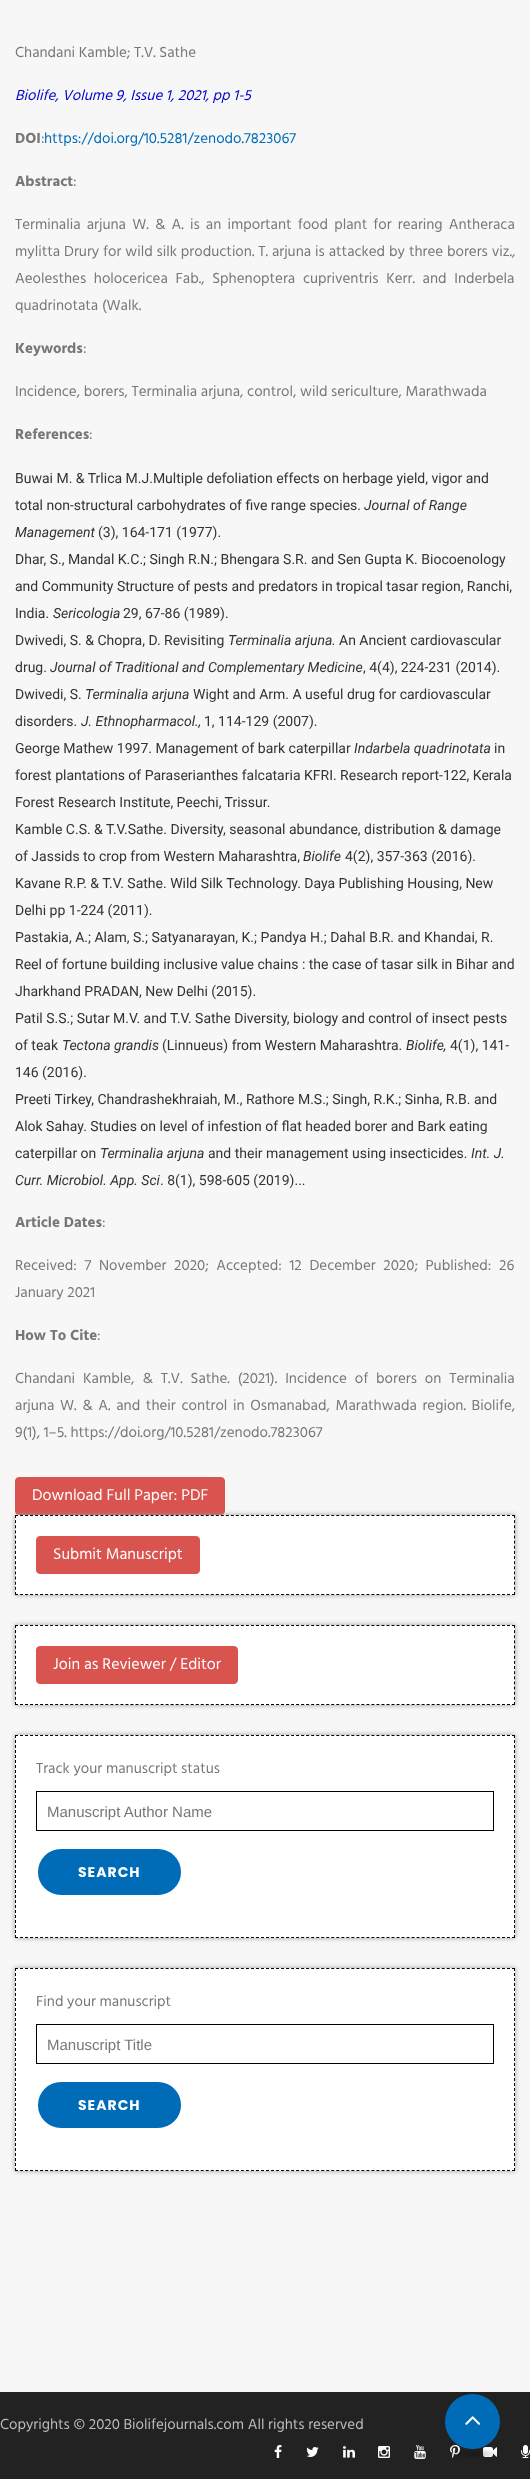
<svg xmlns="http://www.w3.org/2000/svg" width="530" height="2479">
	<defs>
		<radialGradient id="g1" gradientUnits="userSpaceOnUse" cx="0" cy="0" r="1" gradientTransform="matrix(35 0 0 7.1 473 2454)"><stop offset="0" stop-color="#000000" stop-opacity="0.25" /><stop offset="0.8" stop-color="#000000" stop-opacity="0" /></radialGradient>
	</defs>
	<rect width="100%" height="100%" fill="#222222" />
	<rect x="0" y="0" width="530" height="2392" fill="#F7F7F7" />
	<text x="15" y="57" font-family="Hind" font-size="15" fill="#777777">Chandani Kamble; T.V. Sathe</text>
	<text x="15" y="100" font-family="Hind" font-size="15" font-style="italic" fill="#0000CC">Biolife, Volume 9, Issue 1, 2021, pp 1-5</text>
	<text x="15" y="143" font-family="Hind" font-size="15" font-weight="700" fill="#777777">DOI</text>
	<text x="41" y="143" font-family="Hind" font-size="15" fill="#777777">:</text>
	<text x="44" y="143" font-family="Hind" font-size="15" fill="#006CB7">https://doi.org/10.5281/zenodo.7823067</text>
	<text x="15" y="186" font-family="Hind" font-size="15" font-weight="700" fill="#777777">Abstract</text>
	<g font-family="Hind" font-size="15" fill="#777777">
		<text x="73" y="186">:</text>
		<text x="15" y="229" word-spacing="2.5">Terminalia arjuna W. &amp; A. is an important food plant for rearing Antheraca</text>
		<text x="15" y="256" word-spacing="0.25">mylitta Drury for wild silk production. T. arjuna is attacked by three borers viz.,</text>
		<text x="15" y="283" word-spacing="4">Aeolesthes holocericea Fab., Sphenoptera cupriventris Kerr. and Inderbela</text>
		<text x="15" y="310">quadrinotata (Walk.</text>
	</g>
	<text x="15" y="353" font-family="Hind" font-size="15" font-weight="700" fill="#777777">Keywords</text>
	<g font-family="Hind" font-size="15" fill="#777777">
		<text x="83" y="353">:</text>
		<text x="15" y="396">Incidence, borers, Terminalia arjuna, control, wild sericulture, Marathwada</text>
	</g>
	<text x="15" y="439" font-family="Hind" font-size="15" font-weight="700" fill="#777777">References</text>
	<text x="89" y="439" font-family="Hind" font-size="15" fill="#777777">:</text>
	<g font-family="Roboto" font-size="14" fill="#333333">
		<text x="15" y="483">Buwai M. &amp; Trlica M.J.Multiple defoliation effects on herbage yield, vigor and</text>
		<text x="15" y="510">total non-structural carbohydrates of five range species.</text>
	</g>
	<g font-family="Roboto" font-size="14" font-style="italic" fill="#333333">
		<text x="364" y="510">Journal of Range</text>
		<text x="15" y="537">Management</text>
	</g>
	<g font-family="Roboto" font-size="14" fill="#333333">
		<text x="98" y="537">(3), 164-171 (1977).</text>
		<text x="15" y="564">Dhar, S., Mandal K.C.; Singh R.N.; Bhengara S.R. and Sen Gupta K. Biocoenology</text>
		<text x="15" y="591">and Community Structure of pests and predators in tropical tasar region, Ranchi,</text>
		<text x="15" y="618">India.</text>
	</g>
	<text x="53" y="618" font-family="Roboto" font-size="14" font-style="italic" fill="#333333">Sericologia</text>
	<g font-family="Roboto" font-size="14" fill="#333333">
		<text x="123" y="618">29, 67-86 (1989).</text>
		<text x="15" y="645">Dwivedi, S. &amp; Chopra, D. Revisiting</text>
	</g>
	<text x="228" y="645" font-family="Roboto" font-size="14" font-style="italic" fill="#333333">Terminalia arjuna.</text>
	<g font-family="Roboto" font-size="14" fill="#333333">
		<text x="339" y="645">An Ancient cardiovascular</text>
		<text x="15" y="672">drug.</text>
	</g>
	<text x="50" y="672" font-family="Roboto" font-size="14" font-style="italic" fill="#333333">Journal of Traditional and Complementary Medicine</text>
	<g font-family="Roboto" font-size="14" fill="#333333">
		<text x="363" y="672">, 4(4), 224-231 (2014).</text>
		<text x="15" y="699">Dwivedi, S.</text>
	</g>
	<text x="85" y="699" font-family="Roboto" font-size="14" font-style="italic" fill="#333333">Terminalia arjuna</text>
	<g font-family="Roboto" font-size="14" fill="#333333">
		<text x="193" y="699">Wight and Arm. A useful drug for cardiovascular</text>
		<text x="15" y="726">disorders.</text>
	</g>
	<text x="81" y="726" font-family="Roboto" font-size="14" font-style="italic" fill="#333333">J. Ethnopharmacol.,</text>
	<g font-family="Roboto" font-size="14" fill="#333333">
		<text x="204" y="726">1, 114-129 (2007).</text>
		<text x="15" y="753">George Mathew 1997. Management of bark caterpillar</text>
	</g>
	<text x="354" y="753" font-family="Roboto" font-size="14" font-style="italic" fill="#333333">Indarbela quadrinotata</text>
	<g font-family="Roboto" font-size="14" fill="#333333">
		<text x="494" y="753">in</text>
		<text x="15" y="780">forest plantations of Paraserianthes falcataria KFRI. Research report-122, Kerala</text>
		<text x="15" y="807">Forest Research Institute, Peechi, Trissur.</text>
		<text x="15" y="834">Kamble C.S. &amp; T.V.Sathe. Diversity, seasonal abundance, distribution &amp; damage</text>
		<text x="15" y="861">of Jassids to crop from Western Maharashtra,</text>
	</g>
	<text x="303" y="861" font-family="Roboto" font-size="14" font-style="italic" fill="#333333">Biolife</text>
	<g font-family="Roboto" font-size="14" fill="#333333">
		<text x="345" y="861">4(2), 357-363 (2016).</text>
		<text x="15" y="888">Kavane R.P. &amp; T.V. Sathe. Wild Silk Technology. Daya Publishing Housing, New</text>
		<text x="15" y="915">Delhi pp 1-224 (2011).</text>
		<text x="15" y="942">Pastakia, A.; Alam, S.; Satyanarayan, K.; Pandya H.; Dahal B.R. and Khandai, R.</text>
		<text x="15" y="969">Reel of fortune building inclusive value chains : the case of tasar silk in Bihar and</text>
		<text x="15" y="996">Jharkhand PRADAN, New Delhi (2015).</text>
		<text x="15" y="1023">Patil S.S.; Sutar M.V. and T.V. Sathe Diversity, biology and control of insect pests</text>
		<text x="15" y="1050">of teak</text>
	</g>
	<text x="62" y="1050" font-family="Roboto" font-size="14" font-style="italic" fill="#333333">Tectona grandis</text>
	<text x="162" y="1050" font-family="Roboto" font-size="14" fill="#333333">(Linnueus) from Western Maharashtra.</text>
	<text x="406" y="1050" font-family="Roboto" font-size="14" font-style="italic" fill="#333333">Biolife,</text>
	<g font-family="Roboto" font-size="14" fill="#333333">
		<text x="450" y="1050">4(1), 141-</text>
		<text x="15" y="1077">146 (2016).</text>
		<text x="15" y="1104">Preeti Tirkey, Chandrashekhraiah, M., Rathore M.S.; Singh, R.K.; Sinha, R.B. and</text>
		<text x="15" y="1131">Alok Sahay. Studies on level of infestion of flat headed borer and Bark eating</text>
		<text x="15" y="1158">caterpillar on</text>
	</g>
	<text x="100" y="1158" font-family="Roboto" font-size="14" font-style="italic" fill="#333333">Terminalia arjuna</text>
	<text x="208" y="1158" font-family="Roboto" font-size="14" fill="#333333">and their management using insecticides.</text>
	<g font-family="Roboto" font-size="14" font-style="italic" fill="#333333">
		<text x="471" y="1158">Int. J.</text>
		<text x="15" y="1185">Curr. Microbiol. App. Sci</text>
	</g>
	<text x="160" y="1185" font-family="Roboto" font-size="14" fill="#333333">. 8(1), 598-605 (2019)...</text>
	<text x="15" y="1227" font-family="Hind" font-size="15" font-weight="700" fill="#777777">Article Dates</text>
	<g font-family="Hind" font-size="15" fill="#777777">
		<text x="102" y="1227">:</text>
		<text x="15" y="1270" word-spacing="4">Received: 7 November 2020; Accepted: 12 December 2020; Published: 26</text>
		<text x="15" y="1297">January 2021</text>
	</g>
	<text x="15" y="1340" font-family="Hind" font-size="15" font-weight="700" fill="#777777">How To Cite</text>
	<g font-family="Hind" font-size="15" fill="#777777">
		<text x="97" y="1340">:</text>
		<text x="15" y="1383" word-spacing="4.25">Chandani Kamble, &amp; T.V. Sathe. (2021). Incidence of borers on Terminalia</text>
		<text x="15" y="1410" word-spacing="2">arjuna W. &amp; A. and their control in Osmanabad, Marathwada region. Biolife,</text>
		<text x="15" y="1437">9(1), 1–5. https://doi.org/10.5281/zenodo.7823067</text>
	</g>
	<rect x="15.5" y="1477.5" width="209" height="37" rx="3.5" fill="#D9534F" stroke="#D9534F" />
	<text x="32" y="1500" font-family="Hind" font-size="16" fill="#FFFFFF">Download Full Paper: PDF</text>
	<rect x="15" y="1515" width="500" height="80" fill="#999999" filter="blur(2.5px)" />
	<rect x="15" y="1515" width="500" height="80" fill="#FFFFFF" />
	<path d="M15 1515.5H515" fill="none" stroke="#000000" stroke-dasharray="3 2.02" />
	<path d="M514.5 1515V1595" fill="none" stroke="#000000" stroke-dasharray="3 2.13" />
	<path d="M15 1594.5H515" fill="none" stroke="#000000" stroke-dasharray="3 2.02" />
	<path d="M15.5 1515V1595" fill="none" stroke="#000000" stroke-dasharray="3 2.13" />
	<rect x="36.5" y="1536.5" width="163" height="37" rx="3.5" fill="#D9534F" stroke="#D9534F" />
	<text x="53" y="1559" font-family="Hind" font-size="16" fill="#FFFFFF">Submit Manuscript</text>
	<rect x="15" y="1625" width="500" height="80" fill="#999999" filter="blur(2.5px)" />
	<rect x="15" y="1625" width="500" height="80" fill="#FFFFFF" />
	<path d="M15 1625.5H515" fill="none" stroke="#000000" stroke-dasharray="3 2.02" />
	<path d="M514.5 1625V1705" fill="none" stroke="#000000" stroke-dasharray="3 2.13" />
	<path d="M15 1704.5H515" fill="none" stroke="#000000" stroke-dasharray="3 2.02" />
	<path d="M15.5 1625V1705" fill="none" stroke="#000000" stroke-dasharray="3 2.13" />
	<rect x="36.5" y="1646.5" width="201" height="37" rx="3.5" fill="#D9534F" stroke="#D9534F" />
	<text x="53" y="1669" font-family="Hind" font-size="16" fill="#FFFFFF">Join as Reviewer / Editor</text>
	<rect x="15" y="1735" width="500" height="203" fill="#999999" filter="blur(2.5px)" />
	<rect x="15" y="1735" width="500" height="203" fill="#FFFFFF" />
	<path d="M15 1735.5H515" fill="none" stroke="#000000" stroke-dasharray="3 2.02" />
	<path d="M514.5 1735V1938" fill="none" stroke="#000000" stroke-dasharray="3 2" />
	<path d="M15 1937.5H515" fill="none" stroke="#000000" stroke-dasharray="3 2.02" />
	<path d="M15.5 1735V1938" fill="none" stroke="#000000" stroke-dasharray="3 2" />
	<text x="36" y="1773" font-family="Hind" font-size="15" fill="#777777">Track your manuscript status</text>
	<rect x="36.5" y="1791.5" width="457" height="39" fill="none" stroke="#000000" />
	<text x="47" y="1817" font-family="Liberation Sans" font-size="15" fill="#777777">Manuscript Author Name</text>
	<rect x="37" y="1848" width="145" height="48" rx="24" fill="#006CB7" stroke="#FFFFFF" stroke-width="2" />
	<text x="78" y="1877" font-family="Poppins" font-size="14" font-weight="700" letter-spacing="1" fill="#FFFFFF">SEARCH</text>
	<rect x="15" y="1968" width="500" height="203" fill="#999999" filter="blur(2.5px)" />
	<rect x="15" y="1968" width="500" height="203" fill="#FFFFFF" />
	<path d="M15 1968.5H515" fill="none" stroke="#000000" stroke-dasharray="3 2.02" />
	<path d="M514.5 1968V2171" fill="none" stroke="#000000" stroke-dasharray="3 2" />
	<path d="M15 2170.5H515" fill="none" stroke="#000000" stroke-dasharray="3 2.02" />
	<path d="M15.5 1968V2171" fill="none" stroke="#000000" stroke-dasharray="3 2" />
	<text x="36" y="2006" font-family="Hind" font-size="15" fill="#777777">Find your manuscript</text>
	<rect x="36.5" y="2024.5" width="457" height="39" fill="none" stroke="#000000" />
	<text x="47" y="2050" font-family="Liberation Sans" font-size="15" fill="#777777">Manuscript Title</text>
	<rect x="37" y="2081" width="145" height="48" rx="24" fill="#006CB7" stroke="#FFFFFF" stroke-width="2" />
	<text x="78" y="2110" font-family="Poppins" font-size="14" font-weight="700" letter-spacing="1" fill="#FFFFFF">SEARCH</text>
	<text x="0" y="2429" font-family="Hind" font-size="15" fill="#BCBCBC">Copyrights © 2020 Biolifejournals.com All rights reserved</text>
	<image x="274" y="2445" width="8" height="13" href="assets/img1.png" />
	<image x="306" y="2447" width="13" height="10" href="assets/img2.png" />
	<image x="343" y="2446" width="12" height="12" href="assets/img3.png" />
	<image x="378" y="2446" width="12" height="12" href="assets/img4.png" />
	<image x="414" y="2445" width="12" height="14" href="assets/img5.png" />
	<image x="450" y="2445" width="10" height="13" href="assets/img6.png" />
	<image x="483" y="2447" width="14" height="10" href="assets/img7.png" />
	<image x="521" y="2445" width="9" height="13" href="assets/img8.png" />
	<circle cx="472.5" cy="2421.5" r="27.5" fill="#006CB7" />
	<image x="465" y="2416" width="16" height="9" href="assets/img9.png" />
	<rect x="450" y="2449" width="47" height="9" fill="url(#g1)" />
</svg>
